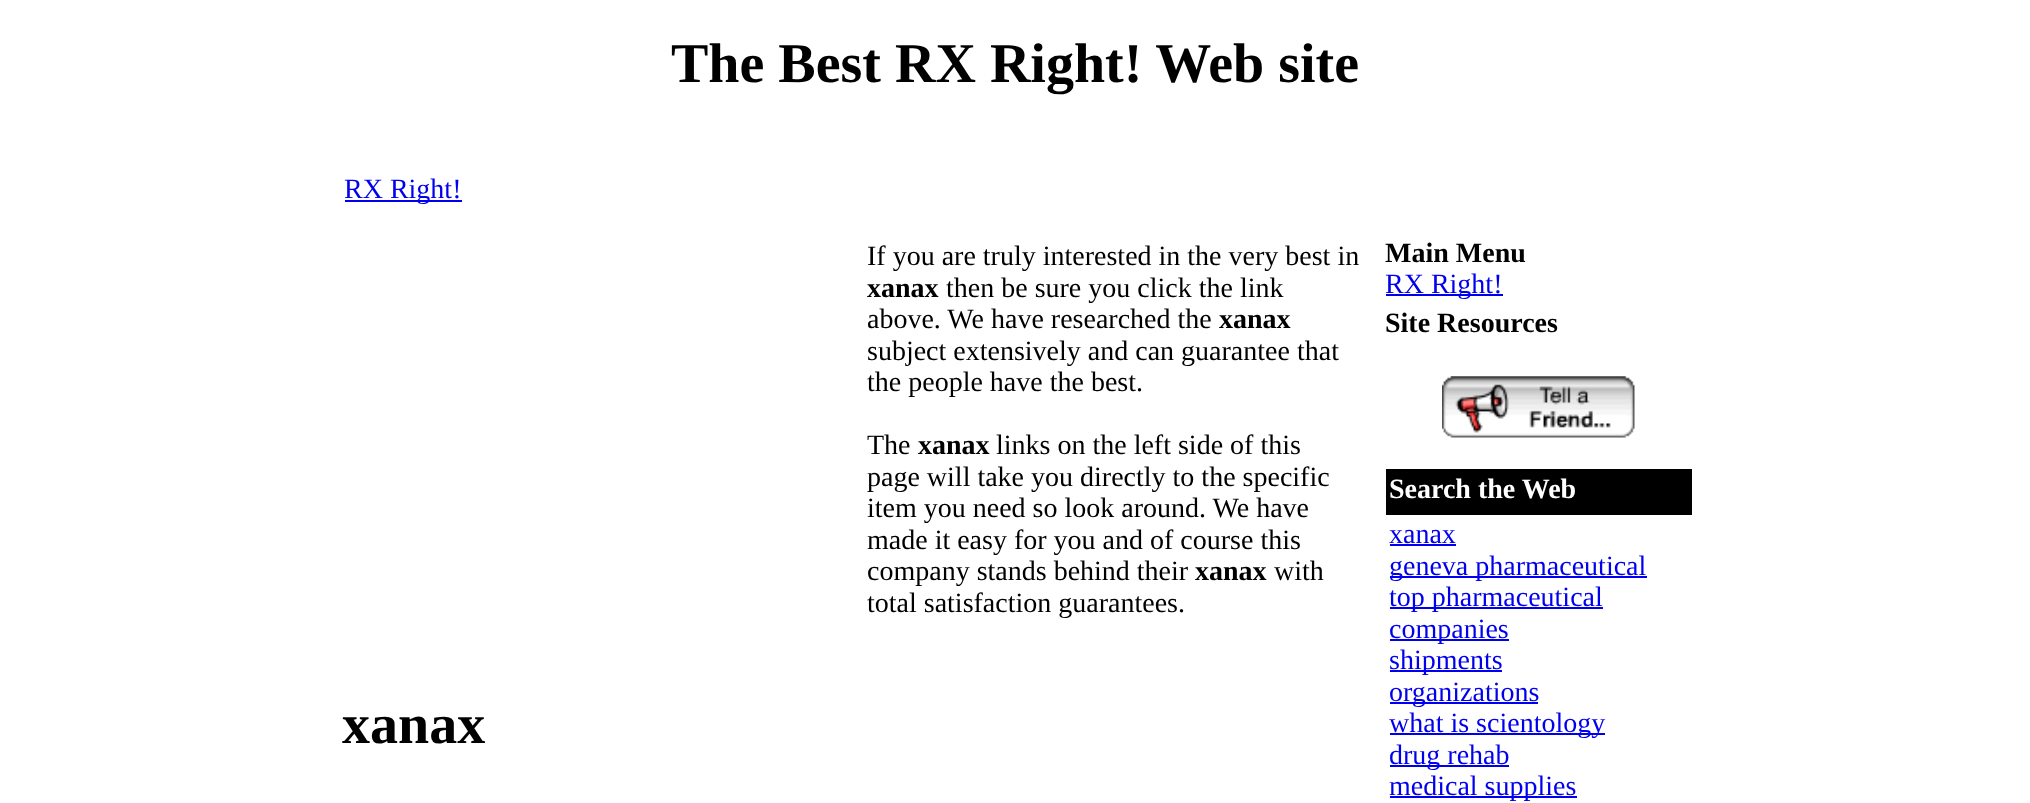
<svg xmlns="http://www.w3.org/2000/svg" width="2030" height="803">
	<rect width="100%" height="100%" fill="#FFFFFF" />
	<text x="671" y="82" font-family="Liberation Serif" font-size="56" font-weight="700" fill="#000000">The Best RX Right! Web site</text>
	<rect x="345" y="200" width="117" height="2" fill="#0000EE" />
	<text x="344" y="198" font-family="Liberation Serif" font-size="28" fill="#0000EE">RX Right!</text>
	<text x="867" y="265" font-family="Liberation Serif" font-size="28" fill="#000000">If you are truly interested in the very best in</text>
	<text x="867" y="297" font-family="Liberation Serif" font-size="28" font-weight="700" fill="#000000">xanax</text>
	<g font-family="Liberation Serif" font-size="28" fill="#000000">
		<text x="946" y="297">then be sure you click the link</text>
		<text x="867" y="328">above. We have researched the</text>
	</g>
	<text x="1219" y="328" font-family="Liberation Serif" font-size="28" font-weight="700" fill="#000000">xanax</text>
	<g font-family="Liberation Serif" font-size="28" fill="#000000">
		<text x="867" y="360">subject extensively and can guarantee that</text>
		<text x="867" y="391">the people have the best.</text>
		<text x="867" y="454">The</text>
	</g>
	<text x="918" y="454" font-family="Liberation Serif" font-size="28" font-weight="700" fill="#000000">xanax</text>
	<g font-family="Liberation Serif" font-size="28" fill="#000000">
		<text x="996" y="454">links on the left side of this</text>
		<text x="867" y="486">page will take you directly to the specific</text>
		<text x="867" y="517">item you need so look around. We have</text>
		<text x="867" y="549">made it easy for you and of course this</text>
		<text x="867" y="580">company stands behind their</text>
	</g>
	<text x="1195" y="580" font-family="Liberation Serif" font-size="28" font-weight="700" fill="#000000">xanax</text>
	<g font-family="Liberation Serif" font-size="28" fill="#000000">
		<text x="1274" y="580">with</text>
		<text x="867" y="612">total satisfaction guarantees.</text>
	</g>
	<text x="342" y="743" font-family="Liberation Serif" font-size="56" font-weight="700" fill="#000000">xanax</text>
	<text x="1385" y="262" font-family="Liberation Serif" font-size="28" font-weight="700" fill="#000000">Main Menu</text>
	<rect x="1386" y="294" width="117" height="2" fill="#0000EE" />
	<text x="1385" y="293" font-family="Liberation Serif" font-size="28" fill="#0000EE">RX Right!</text>
	<text x="1385" y="332" font-family="Liberation Serif" font-size="28" font-weight="700" fill="#000000">Site Resources</text>
	<image x="1442" y="376" width="193" height="62" href="assets/img1.png" />
	<rect x="1386" y="469" width="306" height="46" fill="#000000" />
	<text x="1389" y="498" font-family="Liberation Serif" font-size="28" font-weight="700" fill="#FFFFFF">Search the Web</text>
	<text x="1389" y="543" font-family="Liberation Serif" font-size="28" fill="#0000EE">xanax</text>
	<rect x="1390" y="544" width="66" height="2" fill="#0000EE" />
	<rect x="1390" y="576" width="257" height="2" fill="#0000EE" />
	<text x="1389" y="575" font-family="Liberation Serif" font-size="28" fill="#0000EE">geneva pharmaceutical</text>
	<rect x="1390" y="607" width="213" height="2" fill="#0000EE" />
	<text x="1389" y="606" font-family="Liberation Serif" font-size="28" fill="#0000EE">top pharmaceutical</text>
	<rect x="1390" y="639" width="119" height="2" fill="#0000EE" />
	<text x="1389" y="638" font-family="Liberation Serif" font-size="28" fill="#0000EE">companies</text>
	<rect x="1390" y="670" width="112" height="2" fill="#0000EE" />
	<text x="1389" y="669" font-family="Liberation Serif" font-size="28" fill="#0000EE">shipments</text>
	<rect x="1390" y="702" width="148" height="2" fill="#0000EE" />
	<text x="1389" y="701" font-family="Liberation Serif" font-size="28" fill="#0000EE">organizations</text>
	<rect x="1390" y="733" width="215" height="2" fill="#0000EE" />
	<text x="1389" y="732" font-family="Liberation Serif" font-size="28" fill="#0000EE">what is scientology</text>
	<rect x="1390" y="765" width="119" height="2" fill="#0000EE" />
	<text x="1389" y="764" font-family="Liberation Serif" font-size="28" fill="#0000EE">drug rehab</text>
	<rect x="1390" y="796" width="187" height="2" fill="#0000EE" />
	<text x="1389" y="795" font-family="Liberation Serif" font-size="28" fill="#0000EE">medical supplies</text>
</svg>
